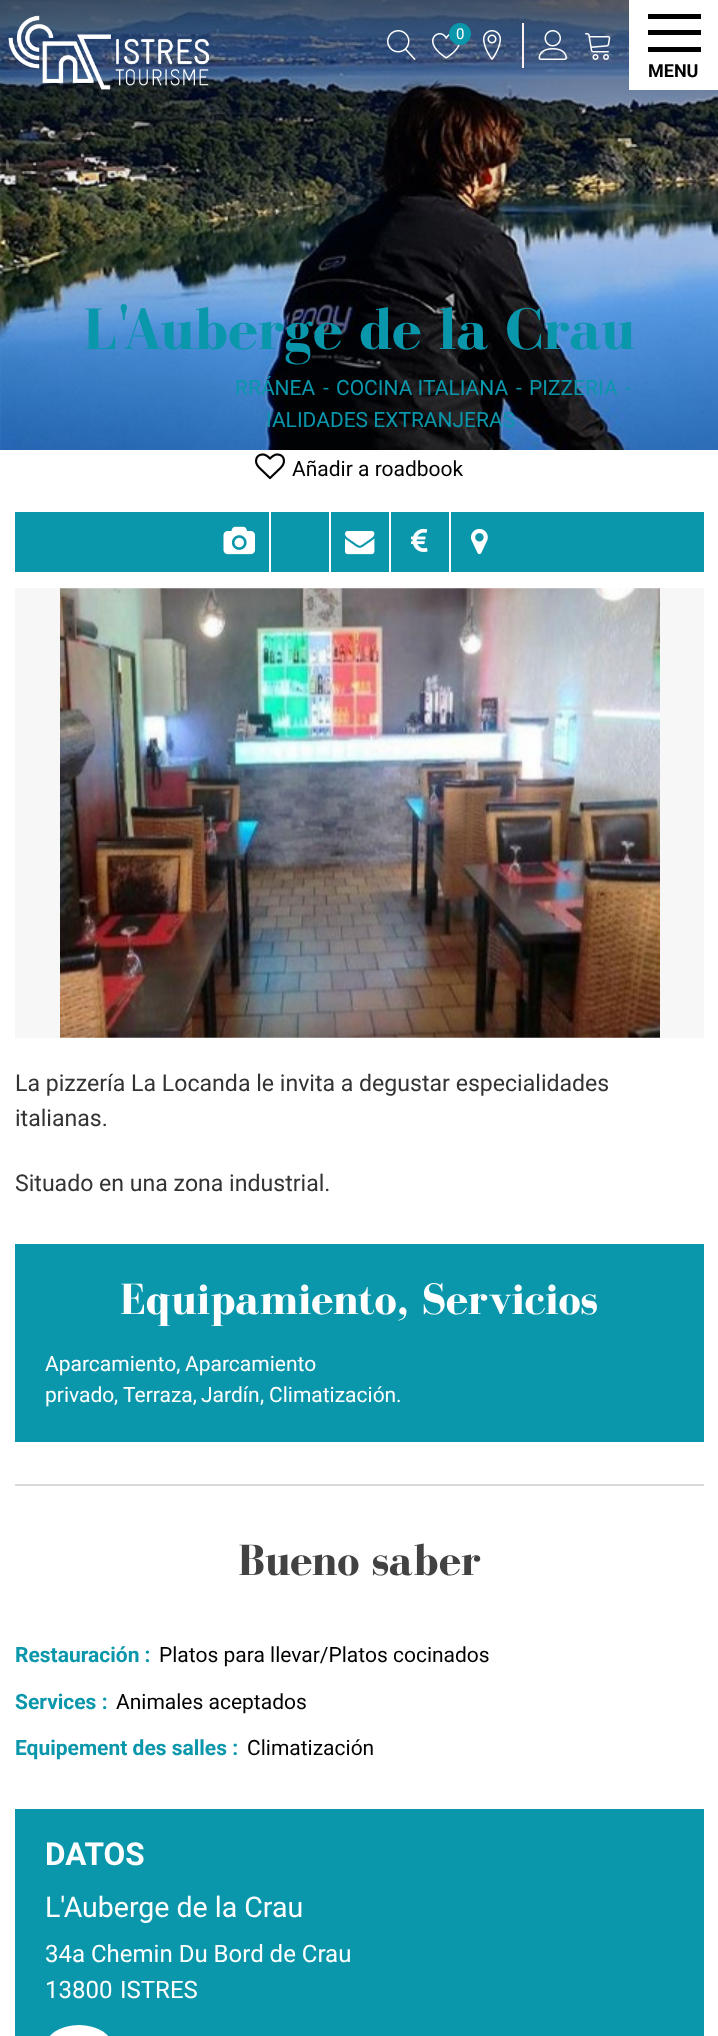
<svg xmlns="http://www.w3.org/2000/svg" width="718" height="2036">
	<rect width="100%" height="100%" fill="#FFFFFF" />
	<image x="0" y="0" width="718" height="450" href="assets/img1.png" />
	<image x="8" y="15" width="202" height="75" href="assets/img2.png" />
	<image x="387" y="30" width="29" height="30" href="assets/img3.png" />
	<image x="432" y="33" width="28" height="26" href="assets/img4.png" />
	<circle cx="460" cy="34" r="11" fill="#0A96AB" />
	<text x="456" y="39" font-family="Roboto" font-size="15" fill="#FFFFFF">0</text>
	<image x="483" y="30" width="18" height="30" href="assets/img5.png" />
	<rect x="522" y="23" width="2" height="45" fill="#FFF0F0" />
	<image x="538" y="30" width="29" height="30" href="assets/img6.png" />
	<image x="585" y="33" width="26" height="27" href="assets/img7.png" />
	<rect x="629" y="0" width="89" height="90" fill="#FFFFFF" />
	<rect x="648" y="14" width="53" height="5" fill="#000000" />
	<rect x="648" y="30" width="53" height="5" fill="#000000" />
	<rect x="648" y="47" width="53" height="5" fill="#000000" />
	<text x="648" y="77" font-family="Roboto" font-size="18" font-weight="700" fill="#000000">MENU</text>
	<text x="83" y="349" font-family="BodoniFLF" font-size="60" font-weight="700" fill="#0A96AB">L'Auberge de la Crau</text>
	<g font-family="Roboto" font-size="21" fill="#0A96AB">
		<text x="235" y="395">RRÁNEA</text>
		<text x="323" y="395">-</text>
		<text x="336" y="395">COCINA ITALIANA</text>
		<text x="516" y="395">-</text>
		<text x="529" y="395">PIZZERIA</text>
		<text x="625" y="395">-</text>
		<text x="266" y="427">IALIDADES EXTRANJERAS</text>
	</g>
	<image x="255" y="453" width="30" height="27" href="assets/img8.png" />
	<text x="292" y="476" font-family="Roboto" font-size="21" fill="#000000">Añadir a roadbook</text>
	<rect x="15" y="512" width="689" height="60" fill="#0A96AB" />
	<rect x="269" y="512" width="2" height="60" fill="#FFFFFF" />
	<image x="223" y="526" width="32" height="29" href="assets/img9.png" />
	<rect x="329" y="512" width="2" height="60" fill="#FFFFFF" />
	<rect x="389" y="512" width="2" height="60" fill="#FFFFFF" />
	<image x="345" y="531" width="30" height="24" href="assets/img10.png" />
	<rect x="449" y="512" width="2" height="60" fill="#FFFFFF" />
	<image x="411" y="528" width="17" height="24" href="assets/img11.png" />
	<image x="471" y="528" width="17" height="27" href="assets/img12.png" />
	<rect x="15" y="588" width="689" height="450" fill="#F7F7F7" />
	<image x="60" y="588" width="600" height="450" href="assets/img13.png" />
	<g font-family="Roboto" font-size="23.1" fill="#333333">
		<text x="15" y="1091">La pizzería La Locanda le invita a degustar especialidades</text>
		<text x="15" y="1126">italianas.</text>
		<text x="15" y="1191">Situado en una zona industrial.</text>
	</g>
	<rect x="15" y="1244" width="689" height="198" fill="#0A96AB" />
	<text x="120" y="1314" font-family="BodoniFLF" font-size="45" font-weight="700" fill="#FFFFFF">Equipamiento, Servicios</text>
	<g font-family="Roboto" font-size="21" fill="#FFFFFF">
		<text x="45" y="1371">Aparcamiento,</text>
		<text x="185" y="1371">Aparcamiento</text>
		<text x="45" y="1402">privado</text>
		<text x="114" y="1402">,</text>
		<text x="123" y="1402">Terraza,</text>
		<text x="201" y="1402">Jardín</text>
		<text x="260" y="1402">,</text>
		<text x="269" y="1402">Climatización</text>
		<text x="396" y="1402">.</text>
	</g>
	<rect x="15" y="1484" width="689" height="2" fill="#D9D9D9" />
	<text x="238" y="1575" font-family="BodoniFLF" font-size="45" font-weight="700" fill="#424242">Bueno saber</text>
	<text x="15" y="1662" font-family="Roboto" font-size="21" font-weight="700" fill="#0A96AB">Restauración :</text>
	<text x="159" y="1662" font-family="Roboto" font-size="21" fill="#000000">Platos para llevar/Platos cocinados</text>
	<text x="15" y="1709" font-family="Roboto" font-size="21" font-weight="700" fill="#0A96AB">Services :</text>
	<text x="116" y="1709" font-family="Roboto" font-size="21" fill="#000000">Animales aceptados</text>
	<text x="15" y="1755" font-family="Roboto" font-size="21" font-weight="700" fill="#0A96AB">Equipement des salles :</text>
	<text x="247" y="1755" font-family="Roboto" font-size="21" fill="#000000">Climatización</text>
	<rect x="15" y="1809" width="689" height="227" fill="#0A96AB" />
	<text x="45" y="1865" font-family="Roboto" font-size="31.5" font-weight="700" fill="#FFFFFF">DATOS</text>
	<text x="45" y="1917" font-family="Roboto" font-size="28.5" fill="#FFFFFF">L'Auberge de la Crau</text>
	<g font-family="Roboto" font-size="24" fill="#FFFFFF">
		<text x="45" y="1962">34a Chemin Du Bord de Crau</text>
		<text x="45" y="1998">13800</text>
		<text x="120" y="1998">ISTRES</text>
	</g>
	<rect x="45" y="2025" width="68" height="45" rx="34" fill="#FFFFFF" />
</svg>
